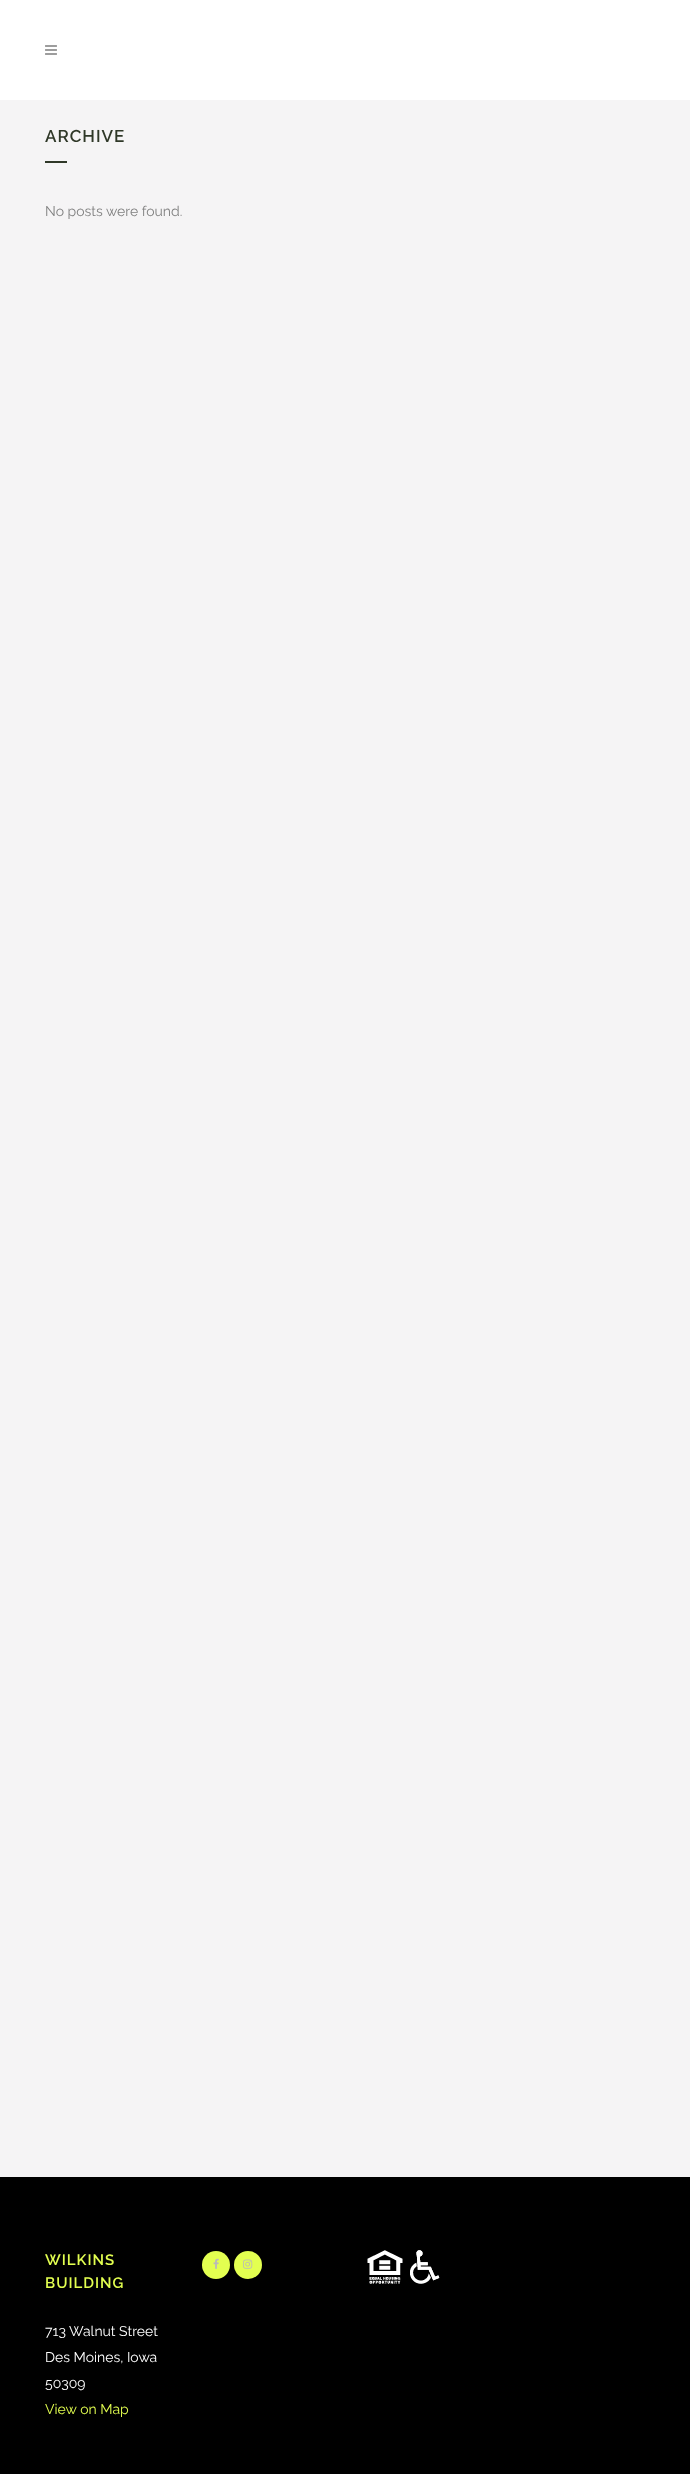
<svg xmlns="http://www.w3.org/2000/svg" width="690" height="2474">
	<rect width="100%" height="100%" fill="#F5F4F5" />
	<rect x="0" y="0" width="690" height="100" fill="#FFFFFF" />
	<image x="45" y="45" width="12" height="10" href="assets/img1.png" />
	<text x="45" y="142" font-family="Raleway" font-size="17" font-weight="600" letter-spacing="1" fill="#2F3828">ARCHIVE</text>
	<rect x="45" y="161" width="22" height="2" fill="#2F3828" />
	<text x="45" y="216" font-family="Raleway" font-size="14" fill="#818181">No posts were found.</text>
	<rect x="0" y="2177" width="690" height="297" fill="#000000" />
	<g font-family="Raleway" font-size="15" font-weight="600" letter-spacing="1" fill="#E3FF50">
		<text x="45" y="2265">WILKINS</text>
		<text x="45" y="2288">BUILDING</text>
	</g>
	<g font-family="Raleway" font-size="14" fill="#FFFFFF">
		<text x="45" y="2336">713 Walnut Street</text>
		<text x="45" y="2362">Des Moines, Iowa</text>
		<text x="45" y="2388">50309</text>
	</g>
	<text x="45" y="2414" font-family="Raleway" font-size="14" fill="#E3FF50">View on Map</text>
	<circle cx="216" cy="2265" r="14" fill="#E3FF50" />
	<image x="213" y="2258" width="6" height="11" href="assets/img2.png" />
	<circle cx="248" cy="2265" r="14" fill="#E3FF50" />
	<image x="243" y="2259" width="10" height="10" href="assets/img3.png" />
	<image x="367" y="2250" width="73" height="34" href="assets/img4.png" />
</svg>
